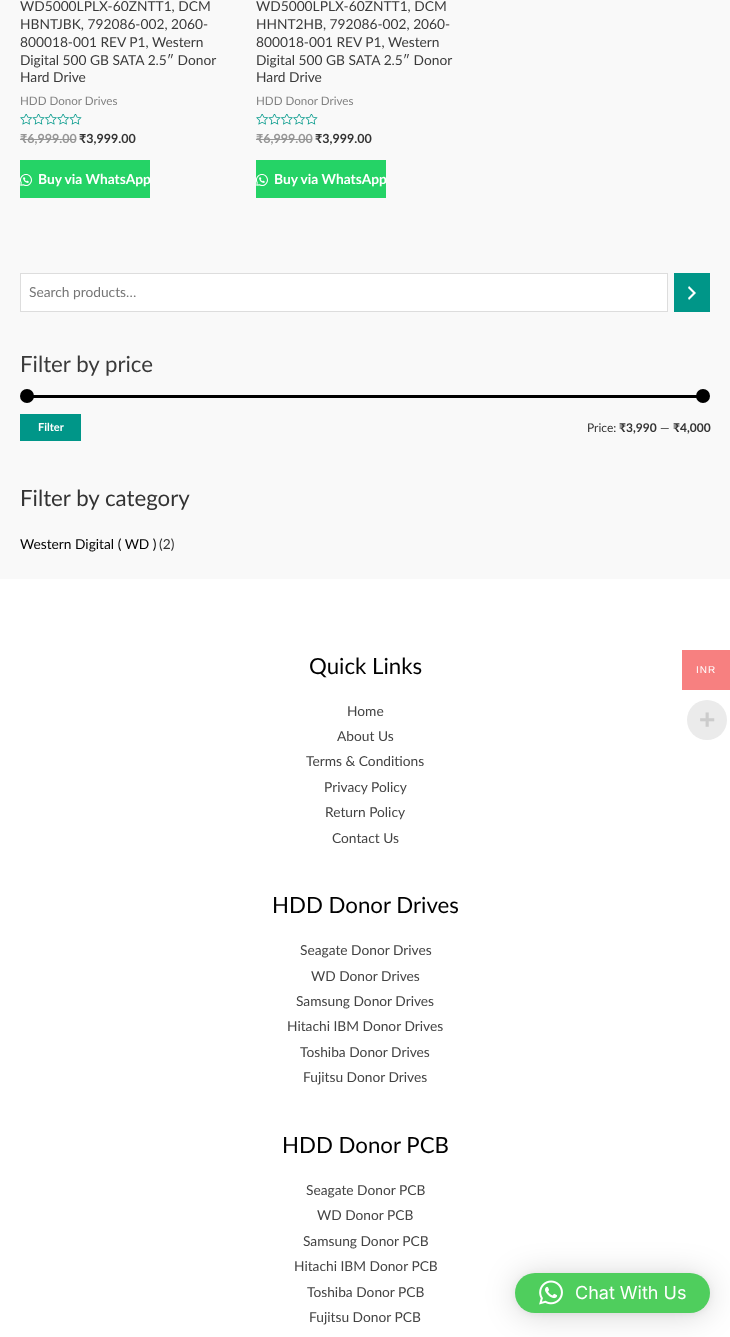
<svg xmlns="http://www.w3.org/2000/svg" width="730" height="1337">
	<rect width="100%" height="100%" fill="#F9F9F9" />
	<g font-family="Lato" font-size="13.75" fill="#3A3A3A">
		<text x="20" y="11">WD5000LPLX-60ZNTT1, DCM</text>
		<text x="20" y="29">HBNTJBK, 792086-002, 2060-</text>
		<text x="20" y="47">800018-001 REV P1, Western</text>
		<text x="20" y="65">Digital 500 GB SATA 2.5″ Donor</text>
		<text x="20" y="82">Hard Drive</text>
	</g>
	<text x="20" y="105" font-family="Lato" font-size="11.6" fill="#828282">HDD Donor Drives</text>
	<image x="20" y="114" width="62" height="11" href="assets/img1.png" />
	<text x="20" y="143" font-family="Lato" font-size="12.5" font-weight="700" fill="#969696">₹6,999.00</text>
	<rect x="20" y="139" width="56" height="1" fill="#969696" />
	<text x="79" y="143" font-family="Lato" font-size="12.5" font-weight="700" fill="#333333">₹3,999.00</text>
	<rect x="20" y="160" width="130" height="38" fill="#25D366" />
	<image x="20" y="174" width="12" height="12" href="assets/img2.png" />
	<text x="38" y="184" font-family="Lato" font-size="13.75" font-weight="700" fill="#FFFFFF">Buy via WhatsApp</text>
	<g font-family="Lato" font-size="13.75" fill="#3A3A3A">
		<text x="256" y="11">WD5000LPLX-60ZNTT1, DCM</text>
		<text x="256" y="29">HHNT2HB, 792086-002, 2060-</text>
		<text x="256" y="47">800018-001 REV P1, Western</text>
		<text x="256" y="65">Digital 500 GB SATA 2.5″ Donor</text>
		<text x="256" y="82">Hard Drive</text>
	</g>
	<text x="256" y="105" font-family="Lato" font-size="11.6" fill="#828282">HDD Donor Drives</text>
	<image x="256" y="114" width="62" height="11" href="assets/img1.png" />
	<text x="256" y="143" font-family="Lato" font-size="12.5" font-weight="700" fill="#969696">₹6,999.00</text>
	<rect x="256" y="139" width="56" height="1" fill="#969696" />
	<text x="315" y="143" font-family="Lato" font-size="12.5" font-weight="700" fill="#333333">₹3,999.00</text>
	<rect x="256" y="160" width="130" height="38" fill="#25D366" />
	<image x="256" y="174" width="12" height="12" href="assets/img2.png" />
	<text x="274" y="184" font-family="Lato" font-size="13.75" font-weight="700" fill="#FFFFFF">Buy via WhatsApp</text>
	<rect x="20.5" y="273.5" width="647" height="38" fill="#FFFFFF" stroke="#DDDDDD" />
	<text x="29" y="297" font-family="Lato" font-size="13.75" fill="#757575">Search products…</text>
	<rect x="674" y="273" width="36" height="39" fill="#009688" />
	<image x="688" y="286" width="8" height="14" href="assets/img3.png" />
	<text x="20" y="372" font-family="Lato" font-size="22.25" fill="#3A3A3A">Filter by price</text>
	<rect x="27" y="395" width="676" height="3" fill="#000000" />
	<circle cx="27" cy="396" r="7" fill="#000000" />
	<circle cx="703" cy="396" r="7" fill="#000000" />
	<rect x="20" y="414" width="61" height="27" fill="#009688" />
	<text x="38" y="431" font-family="Lato" font-size="11" font-weight="700" fill="#FFFFFF">Filter</text>
	<text x="587" y="432" font-family="Lato" font-size="12" fill="#333333">Price:</text>
	<text x="619" y="432" font-family="Lato" font-size="12" font-weight="700" fill="#333333">₹3,990</text>
	<text x="660" y="432" font-family="Lato" font-size="12" fill="#333333">—</text>
	<text x="673" y="432" font-family="Lato" font-size="12" font-weight="700" fill="#333333">₹4,000</text>
	<text x="20" y="506" font-family="Lato" font-size="22.25" fill="#333333">Filter by category</text>
	<text x="20" y="549" font-family="Lato" font-size="13.75" fill="#000000">Western Digital ( WD )</text>
	<text x="159" y="549" font-family="Lato" font-size="13.75" fill="#333333">(2)</text>
	<rect x="0" y="579" width="730" height="758" fill="#FFFFFF" />
	<text x="309" y="674" font-family="Lato" font-size="22.25" fill="#000000">Quick Links</text>
	<g font-family="Lato" font-size="13.75" fill="#434343">
		<text x="347" y="716">Home</text>
		<text x="337" y="741">About Us</text>
		<text x="306" y="766">Terms &amp; Conditions</text>
		<text x="324" y="792">Privacy Policy</text>
		<text x="325" y="817">Return Policy</text>
		<text x="332" y="843">Contact Us</text>
	</g>
	<text x="272" y="913" font-family="Lato" font-size="22.25" fill="#000000">HDD Donor Drives</text>
	<g font-family="Lato" font-size="13.75" fill="#434343">
		<text x="300" y="955">Seagate Donor Drives</text>
		<text x="311" y="981">WD Donor Drives</text>
		<text x="296" y="1006">Samsung Donor Drives</text>
		<text x="287" y="1031">Hitachi IBM Donor Drives</text>
		<text x="300" y="1057">Toshiba Donor Drives</text>
		<text x="303" y="1082">Fujitsu Donor Drives</text>
	</g>
	<text x="282" y="1153" font-family="Lato" font-size="22.25" fill="#000000">HDD Donor PCB</text>
	<g font-family="Lato" font-size="13.75" fill="#434343">
		<text x="306" y="1195">Seagate Donor PCB</text>
		<text x="317" y="1220">WD Donor PCB</text>
		<text x="303" y="1246">Samsung Donor PCB</text>
		<text x="294" y="1271">Hitachi IBM Donor PCB</text>
		<text x="307" y="1297">Toshiba Donor PCB</text>
		<text x="309" y="1322">Fujitsu Donor PCB</text>
	</g>
	<rect x="682" y="650" width="48" height="40" fill="#F78080" />
	<text x="696" y="673" font-family="Liberation Sans" font-size="10" letter-spacing="1" fill="#FFFFFF">INR</text>
	<circle cx="707" cy="720" r="20" fill="#EBEBEB" />
	<text x="699" y="729" font-family="Liberation Sans" font-size="28" font-weight="700" fill="#CCCCCC">+</text>
	<rect x="515" y="1275" width="195" height="40" rx="20" fill="#000000" fill-opacity="0.16" filter="blur(16px)" />
	<rect x="515" y="1274" width="195" height="40" rx="20" fill="#000000" fill-opacity="0.06" filter="blur(3px)" />
	<rect x="515" y="1273" width="195" height="40" rx="20" fill="#4FCE5D" />
	<image x="539" y="1280" width="24" height="25" href="assets/img4.png" />
	<text x="575" y="1299" font-family="Inter" font-size="18" fill="#FFFFFF">Chat With Us</text>
</svg>
